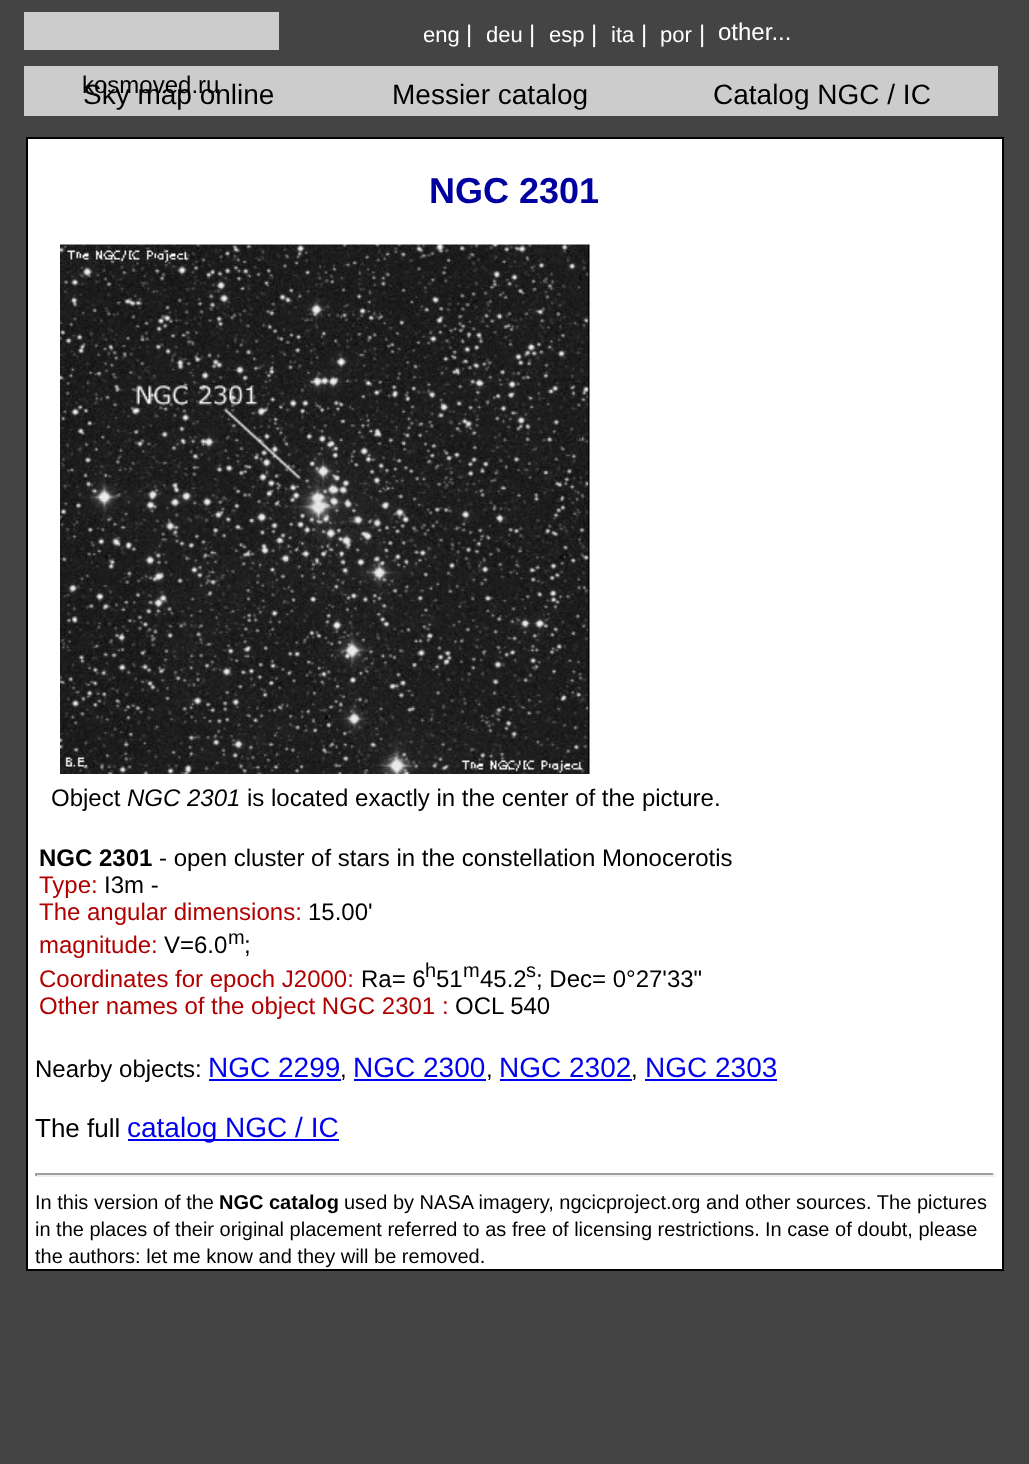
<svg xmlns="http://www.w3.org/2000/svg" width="1029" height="1464">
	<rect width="100%" height="100%" fill="#444444" />
	<text x="423" y="42" font-family="Liberation Sans" font-size="22" fill="#FFFFFF">eng</text>
	<text x="466" y="42" font-family="Liberation Sans" font-size="24" fill="#FFFFFF">|</text>
	<text x="486" y="42" font-family="Liberation Sans" font-size="22" fill="#FFFFFF">deu</text>
	<text x="529" y="42" font-family="Liberation Sans" font-size="24" fill="#FFFFFF">|</text>
	<text x="549" y="42" font-family="Liberation Sans" font-size="22" fill="#FFFFFF">esp</text>
	<text x="591" y="42" font-family="Liberation Sans" font-size="24" fill="#FFFFFF">|</text>
	<text x="611" y="42" font-family="Liberation Sans" font-size="22" fill="#FFFFFF">ita</text>
	<text x="641" y="42" font-family="Liberation Sans" font-size="24" fill="#FFFFFF">|</text>
	<text x="660" y="42" font-family="Liberation Sans" font-size="22" fill="#FFFFFF">por</text>
	<g font-family="Liberation Sans" font-size="24" fill="#FFFFFF">
		<text x="699" y="42">|</text>
		<text x="718" y="40">other...</text>
	</g>
	<rect x="24" y="12" width="255" height="38" fill="#CCCCCC" />
	<rect x="24" y="66" width="974" height="50" fill="#CCCCCC" />
	<text x="82" y="93" font-family="Liberation Sans" font-size="24" fill="#000000">kosmoved.ru</text>
	<g font-family="Liberation Sans" font-size="28" fill="#000000">
		<text x="83" y="104">Sky map online</text>
		<text x="392" y="104">Messier catalog</text>
		<text x="713" y="104">Catalog NGC / IC</text>
	</g>
	<rect x="27" y="138" width="976" height="1132" fill="#FFFFFF" stroke="#000000" stroke-width="2" />
	<text x="429" y="203" font-family="Liberation Sans" font-size="36" font-weight="700" fill="#0000A0">NGC 2301</text>
	<image x="60" y="244" width="530" height="530" href="assets/img1.png" />
	<text x="51" y="806" font-family="Liberation Sans" font-size="24" fill="#000000">Object</text>
	<text x="127" y="806" font-family="Liberation Sans" font-size="24" font-style="italic" fill="#000000">NGC 2301</text>
	<text x="247" y="806" font-family="Liberation Sans" font-size="24" fill="#000000">is located exactly in the center of the picture.</text>
	<text x="39" y="866" font-family="Liberation Sans" font-size="24" font-weight="700" fill="#000000">NGC 2301</text>
	<text x="159" y="866" font-family="Liberation Sans" font-size="24" fill="#000000">- open cluster of stars in the constellation Monocerotis</text>
	<text x="39" y="893" font-family="Liberation Sans" font-size="24" fill="#B00000">Type:</text>
	<text x="104" y="893" font-family="Liberation Sans" font-size="24" fill="#000000">I3m -</text>
	<text x="39" y="920" font-family="Liberation Sans" font-size="24" fill="#B00000">The angular dimensions:</text>
	<text x="308" y="920" font-family="Liberation Sans" font-size="24" fill="#000000">15.00'</text>
	<text x="39" y="953" font-family="Liberation Sans" font-size="24" fill="#B00000">magnitude:</text>
	<text x="164" y="953" font-family="Liberation Sans" font-size="24" fill="#000000">V=6.0</text>
	<text x="228" y="944" font-family="Liberation Sans" font-size="20" fill="#000000">m</text>
	<text x="244" y="953" font-family="Liberation Sans" font-size="24" fill="#000000">;</text>
	<text x="39" y="987" font-family="Liberation Sans" font-size="24" fill="#B00000">Coordinates for epoch J2000:</text>
	<text x="361" y="987" font-family="Liberation Sans" font-size="24" fill="#000000">Ra= 6</text>
	<text x="425" y="977" font-family="Liberation Sans" font-size="20" fill="#000000">h</text>
	<text x="436" y="987" font-family="Liberation Sans" font-size="24" fill="#000000">51</text>
	<text x="463" y="977" font-family="Liberation Sans" font-size="20" fill="#000000">m</text>
	<text x="480" y="987" font-family="Liberation Sans" font-size="24" fill="#000000">45.2</text>
	<text x="526" y="977" font-family="Liberation Sans" font-size="20" fill="#000000">s</text>
	<text x="536" y="987" font-family="Liberation Sans" font-size="24" fill="#000000">; Dec= 0°27'33"</text>
	<text x="39" y="1014" font-family="Liberation Sans" font-size="24" fill="#B00000">Other names of the object NGC 2301 :</text>
	<g font-family="Liberation Sans" font-size="24" fill="#000000">
		<text x="455" y="1014">OCL 540</text>
		<text x="35" y="1077">Nearby objects:</text>
	</g>
	<text x="208" y="1077" font-family="Liberation Sans" font-size="28" fill="#0000EE">NGC 2299</text>
	<rect x="209" y="1079" width="132" height="2" fill="#0000EE" />
	<text x="340" y="1077" font-family="Liberation Sans" font-size="24" fill="#000000">,</text>
	<text x="353" y="1077" font-family="Liberation Sans" font-size="28" fill="#0000EE">NGC 2300</text>
	<rect x="354" y="1079" width="132" height="2" fill="#0000EE" />
	<text x="486" y="1077" font-family="Liberation Sans" font-size="24" fill="#000000">,</text>
	<text x="499" y="1077" font-family="Liberation Sans" font-size="28" fill="#0000EE">NGC 2302</text>
	<rect x="500" y="1079" width="132" height="2" fill="#0000EE" />
	<text x="631" y="1077" font-family="Liberation Sans" font-size="24" fill="#000000">,</text>
	<text x="645" y="1077" font-family="Liberation Sans" font-size="28" fill="#0000EE">NGC 2303</text>
	<rect x="645" y="1079" width="132" height="2" fill="#0000EE" />
	<text x="35" y="1137" font-family="Liberation Sans" font-size="26" fill="#000000">The full</text>
	<rect x="128" y="1139" width="211" height="2" fill="#0000EE" />
	<text x="127" y="1137" font-family="Liberation Sans" font-size="28" fill="#0000EE">catalog NGC / IC</text>
	<rect x="35" y="1173" width="960" height="2" fill="#9F9F9F" />
	<rect x="993" y="1173" width="2" height="3" fill="#EEEEEE" />
	<rect x="35" y="1175" width="960" height="2" fill="#EEEEEE" />
	<rect x="35" y="1173" width="2" height="3" fill="#9F9F9F" />
	<text x="35" y="1209" font-family="Liberation Sans" font-size="20" fill="#000000">In this version of the</text>
	<text x="219" y="1209" font-family="Liberation Sans" font-size="20" font-weight="700" fill="#000000">NGC catalog</text>
	<g font-family="Liberation Sans" font-size="20" fill="#000000">
		<text x="344" y="1209">used by NASA imagery, ngcicproject.org and other sources. The pictures</text>
		<text x="35" y="1236">in the places of their original placement referred to as free of licensing restrictions.</text>
		<text x="765" y="1236">In case of doubt, please</text>
		<text x="35" y="1263">the authors: let me know and they will be removed.</text>
	</g>
</svg>
